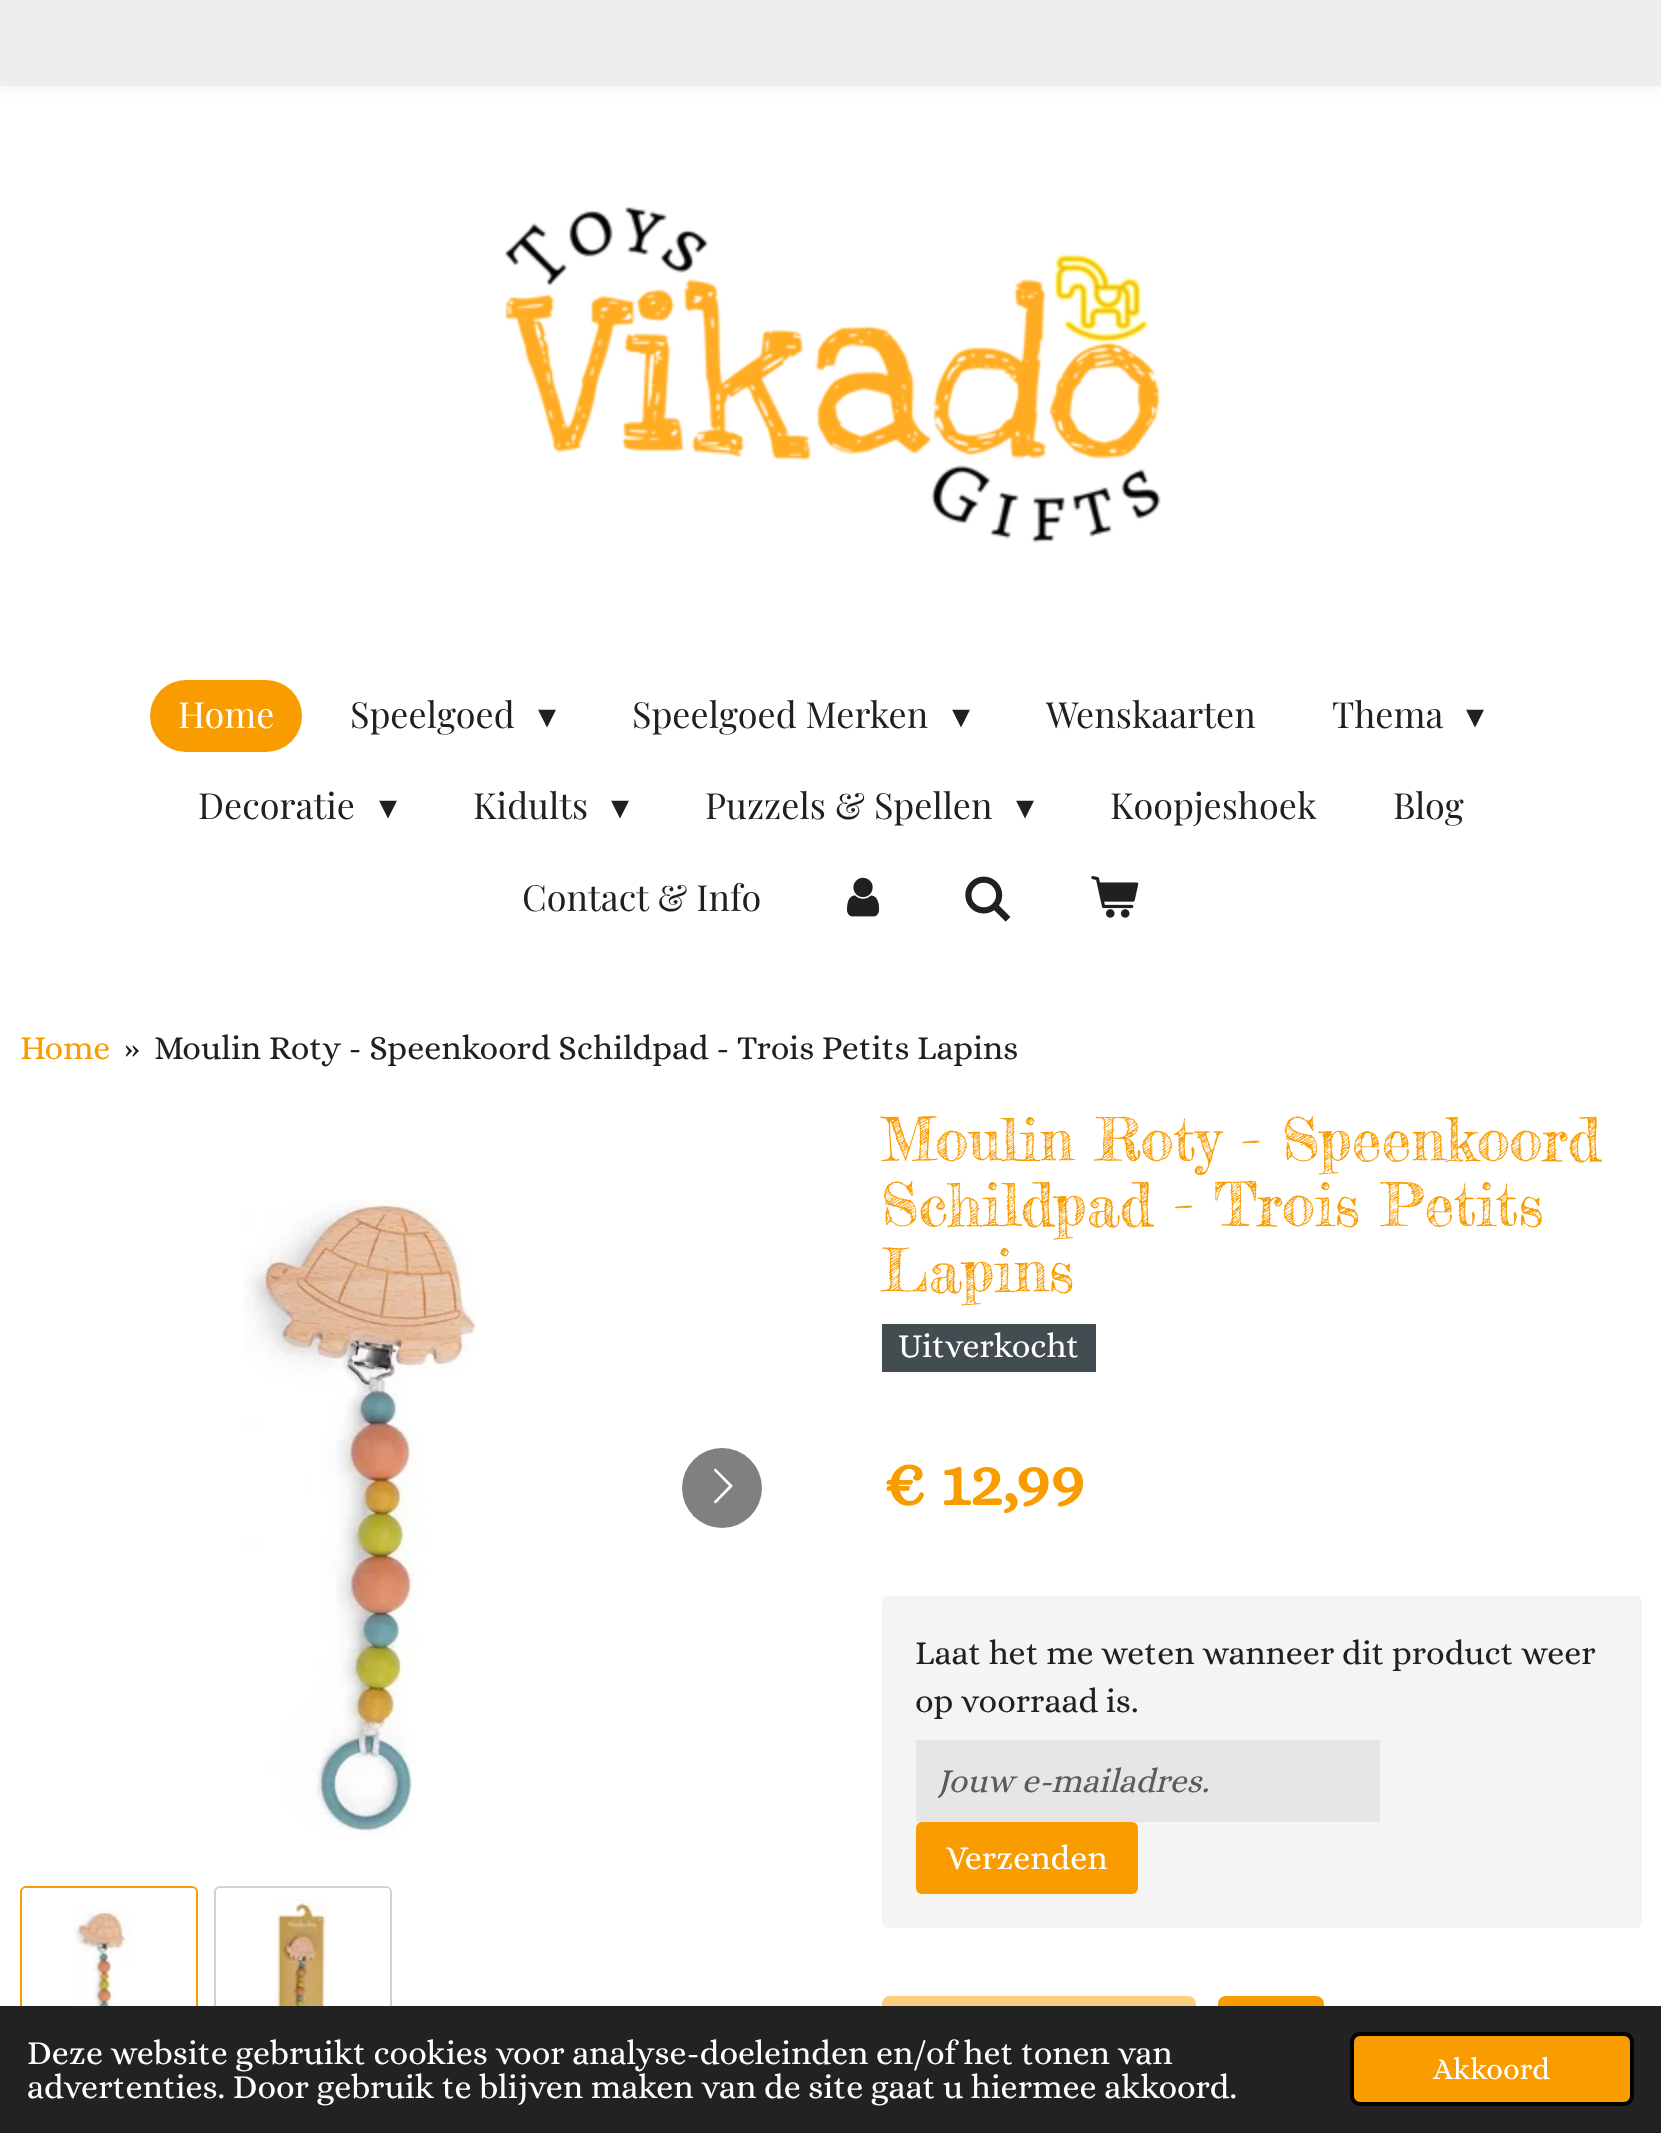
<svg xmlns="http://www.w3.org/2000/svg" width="1661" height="2133">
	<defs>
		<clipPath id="clip1"><rect x="938" y="1762" width="420" height="38" /></clipPath>
	</defs>
	<rect width="100%" height="100%" fill="#FFFFFF" />
	<rect x="0" y="-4" width="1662" height="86" fill="#000000" fill-opacity="0.1" filter="blur(10px)" />
	<rect x="0" y="0" width="1661" height="86" fill="#EEEEEE" />
	<image x="505" y="207" width="656" height="336" href="assets/img1.png" />
	<rect x="150" y="680" width="152" height="72" rx="36" fill="#F89C00" />
	<text x="178" y="728" font-family="Playfair Display" font-size="36" fill="#FFFFFF">Home</text>
	<text x="350" y="728" font-family="Playfair Display" font-size="36" fill="#202020">Speelgoed</text>
	<text x="538" y="728" font-family="DejaVu Sans" font-size="36" fill="#202020">▾</text>
	<text x="632" y="728" font-family="Playfair Display" font-size="36" fill="#202020">Speelgoed Merken</text>
	<text x="952" y="728" font-family="DejaVu Sans" font-size="36" fill="#202020">▾</text>
	<g font-family="Playfair Display" font-size="36" fill="#202020">
		<text x="1046" y="728">Wenskaarten</text>
		<text x="1332" y="728">Thema</text>
	</g>
	<text x="1466" y="728" font-family="DejaVu Sans" font-size="36" fill="#202020">▾</text>
	<text x="198" y="819" font-family="Playfair Display" font-size="36" fill="#202020">Decoratie</text>
	<text x="379" y="819" font-family="DejaVu Sans" font-size="36" fill="#202020">▾</text>
	<text x="473" y="819" font-family="Playfair Display" font-size="36" fill="#202020">Kidults</text>
	<text x="611" y="819" font-family="DejaVu Sans" font-size="36" fill="#202020">▾</text>
	<text x="705" y="819" font-family="Playfair Display" font-size="36" fill="#202020">Puzzels &amp; Spellen</text>
	<text x="1016" y="819" font-family="DejaVu Sans" font-size="36" fill="#202020">▾</text>
	<g font-family="Playfair Display" font-size="36" fill="#202020">
		<text x="1110" y="819">Koopjeshoek</text>
		<text x="1393" y="819">Blog</text>
		<text x="522" y="911">Contact &amp; Info</text>
	</g>
	<image x="846" y="877" width="34" height="40" href="assets/img2.png" />
	<image x="965" y="876" width="46" height="46" href="assets/img3.png" />
	<image x="1091" y="876" width="48" height="42" href="assets/img4.png" />
	<text x="20" y="1059" font-family="Alice" font-size="34" fill="#F89C00">Home</text>
	<g font-family="Alice" font-size="34" fill="#202020">
		<text x="124" y="1059">»</text>
		<text x="154" y="1059">Moulin Roty - Speenkoord Schildpad - Trois Petits Lapins</text>
	</g>
	<image x="244" y="1200" width="234" height="635" href="assets/img5.png" />
	<circle cx="722" cy="1488" r="40" fill="#808080" />
	<path d="M714.5 1501L729 1486L717 1473.5C716.5 1473 712 1469.5 715.5 1468.5L716 1469L732.5 1485.5V1486.5L719 1500C719 1500.5 715 1505.5 714 1502Z" fill="#FFFFFF" />
	<rect x="21" y="1887" width="176" height="176" rx="5" fill="none" stroke="#F89C00" stroke-width="2" />
	<image x="73" y="1910" width="58" height="96" href="assets/img6.png" />
	<rect x="215" y="1887" width="176" height="176" rx="5" fill="none" stroke="#D2D2D2" stroke-width="2" />
	<image x="273" y="1899" width="54" height="107" href="assets/img7.png" />
	<g font-family="Fredericka the Great" font-size="59.4" fill="#F89C00">
		<text x="881" y="1161">Moulin Roty - Speenkoord</text>
		<text x="881" y="1226">Schildpad - Trois Petits</text>
		<text x="881" y="1292">Lapins</text>
	</g>
	<rect x="882" y="1324" width="214" height="48" fill="#424C51" />
	<text x="898" y="1357" font-family="Alice" font-size="34" fill="#FFFFFF">Uitverkocht</text>
	<text x="881" y="1505" font-family="Alice" font-size="68" font-weight="700" fill="#F89C00">€ 12,99</text>
	<rect x="882" y="1596" width="760" height="332" rx="6" fill="#F4F4F4" />
	<g font-family="Alice" font-size="34" fill="#202020">
		<text x="915" y="1664">Laat het me weten wanneer dit product weer</text>
		<text x="915" y="1712">op voorraad is.</text>
	</g>
	<rect x="916" y="1740" width="464" height="82" fill="#E6E6E6" />
	<g clip-path="url(#clip1)">
		<text x="937" y="1792" font-family="Alice" font-size="34" font-style="italic" fill="#5B5B5B">Jouw e-mailadres.</text>
	</g>
	<rect x="916" y="1822" width="222" height="72" rx="6" fill="#F89C00" />
	<text x="946" y="1869" font-family="Alice" font-size="34" fill="#FFFFFF">Verzenden</text>
	<rect x="882" y="1996" width="314" height="110" rx="8" fill="#FCCE80" />
	<rect x="1218" y="1996" width="106" height="110" rx="8" fill="#F89C00" />
	<rect x="0" y="2006" width="1661" height="127" fill="#222222" />
	<g font-family="Alice" font-size="34" fill="#FFFFFF">
		<text x="27" y="2064">Deze website gebruikt cookies voor analyse-doeleinden en/of het tonen van</text>
		<text x="27" y="2098">advertenties. Door gebruik te blijven maken van de site gaat u hiermee akkoord.</text>
	</g>
	<rect x="1352" y="2034" width="280" height="70" rx="8" fill="#F89C00" stroke="#000000" stroke-width="4" />
	<text x="1433" y="2079" font-family="Alice" font-size="30.5" fill="#FFFFFF">Akkoord</text>
</svg>
